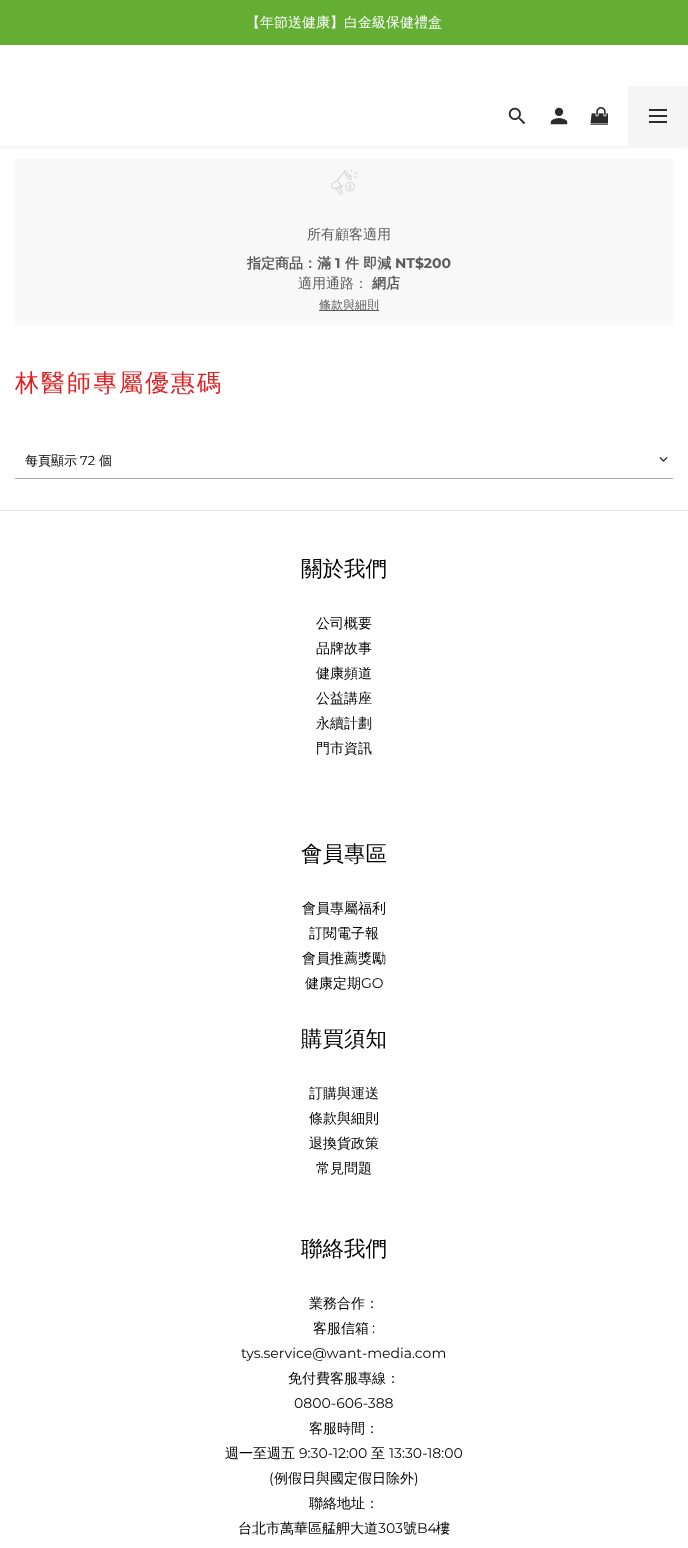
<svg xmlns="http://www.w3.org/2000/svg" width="688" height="1548">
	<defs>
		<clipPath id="clip1"><rect x="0" y="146" width="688" height="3" /></clipPath>
	</defs>
	<rect width="100%" height="100%" fill="#FFFFFF" />
	<rect x="0" y="0" width="688" height="45" fill="#63AE33" />
	<text x="246" y="27" font-family="WenQuanYi Zen Hei" font-size="14" font-weight="500" fill="#FFFFFF">【年節送健康】白金級保健禮盒</text>
	<g clip-path="url(#clip1)">
		<rect x="0" y="47" width="688" height="101" fill="#000000" fill-opacity="0.06" filter="blur(3px)" />
	</g>
	<image x="508" y="107" width="18" height="18" href="assets/img1.png" />
	<image x="550" y="107" width="18" height="18" href="assets/img2.png" />
	<image x="590" y="107" width="18" height="18" href="assets/img3.png" />
	<rect x="628" y="86" width="60" height="60" fill="#F5F5F5" />
	<rect x="649" y="115" width="18" height="2" fill="#2C2C2C" />
	<rect x="649" y="109" width="18" height="2" fill="#2C2C2C" />
	<rect x="649" y="121" width="18" height="2" fill="#2C2C2C" />
	<rect x="15" y="159" width="658" height="166" fill="#F8F8F8" />
	<image x="331" y="169" width="27" height="26" href="assets/img4.png" />
	<text x="307" y="239" font-family="WenQuanYi Zen Hei" font-size="14" font-weight="500" fill="#5B5B5B">所有顧客適用</text>
	<text x="247" y="268" font-family="WenQuanYi Zen Hei" font-size="14" font-weight="700" fill="#5B5B5B">指定商品：滿</text>
	<text x="335" y="268" font-family="Montserrat" font-size="14" font-weight="700" fill="#5B5B5B">1</text>
	<text x="345" y="268" font-family="WenQuanYi Zen Hei" font-size="14" font-weight="700" fill="#5B5B5B">件 即減</text>
	<text x="395" y="268" font-family="Montserrat" font-size="14" font-weight="700" fill="#5B5B5B">NT$200</text>
	<text x="298" y="288" font-family="WenQuanYi Zen Hei" font-size="14" font-weight="500" fill="#5B5B5B">適用通路：</text>
	<text x="372" y="288" font-family="WenQuanYi Zen Hei" font-size="14" font-weight="700" fill="#5B5B5B">網店</text>
	<rect x="319" y="310" width="60" height="1" fill="#5B5B5B" />
	<text x="319" y="309" font-family="WenQuanYi Zen Hei" font-size="12" font-weight="500" fill="#5B5B5B">條款與細則</text>
	<text x="15" y="391" font-family="WenQuanYi Zen Hei" font-size="24" font-weight="500" letter-spacing="2" fill="#E02020">林醫師專屬優惠碼</text>
	<text x="25" y="465" font-family="WenQuanYi Zen Hei" font-size="13" font-weight="500" fill="#000000">每頁顯示</text>
	<text x="80" y="465" font-family="Montserrat" font-size="13" fill="#000000">72</text>
	<text x="99" y="465" font-family="WenQuanYi Zen Hei" font-size="13" font-weight="500" fill="#000000">個</text>
	<rect x="15" y="478" width="658" height="1" fill="#ADADAD" />
	<image x="659" y="457" width="9" height="5" href="assets/img5.png" />
	<rect x="0" y="510" width="688" height="1" fill="#E6E6E6" />
	<text x="301" y="576" font-family="WenQuanYi Zen Hei" font-size="21.5" font-weight="500" fill="#000000">關於我們</text>
	<g font-family="WenQuanYi Zen Hei" font-size="14" font-weight="500" fill="#000000">
		<text x="316" y="628">公司概要</text>
		<text x="316" y="653">品牌故事</text>
		<text x="316" y="678">健康頻道</text>
		<text x="316" y="703">公益講座</text>
		<text x="316" y="728">永續計劃</text>
		<text x="316" y="753">門市資訊</text>
	</g>
	<text x="301" y="861" font-family="WenQuanYi Zen Hei" font-size="21.5" font-weight="500" fill="#000000">會員專區</text>
	<g font-family="WenQuanYi Zen Hei" font-size="14" font-weight="500" fill="#000000">
		<text x="302" y="913">會員專屬福利</text>
		<text x="309" y="938">訂閱電子報</text>
		<text x="302" y="963">會員推薦獎勵</text>
		<text x="305" y="988">健康定期</text>
	</g>
	<text x="361" y="988" font-family="Montserrat" font-size="14" fill="#000000">GO</text>
	<text x="301" y="1046" font-family="WenQuanYi Zen Hei" font-size="21.5" font-weight="500" fill="#000000">購買須知</text>
	<g font-family="WenQuanYi Zen Hei" font-size="14" font-weight="500" fill="#000000">
		<text x="309" y="1098">訂購與運送</text>
		<text x="309" y="1123">條款與細則</text>
		<text x="309" y="1148">退換貨政策</text>
		<text x="316" y="1173">常見問題</text>
	</g>
	<text x="301" y="1256" font-family="WenQuanYi Zen Hei" font-size="21.5" font-weight="500" fill="#000000">聯絡我們</text>
	<g font-family="WenQuanYi Zen Hei" font-size="14" font-weight="500" fill="#000000">
		<text x="309" y="1308">業務合作：</text>
		<text x="313" y="1333">客服信箱</text>
	</g>
	<g font-family="Montserrat" font-size="14" fill="#000000">
		<text x="372" y="1333">:</text>
		<text x="241" y="1358">tys.service@want-media.com</text>
	</g>
	<text x="288" y="1383" font-family="WenQuanYi Zen Hei" font-size="14" font-weight="500" fill="#000000">免付費客服專線：</text>
	<text x="294" y="1408" font-family="Montserrat" font-size="14" fill="#000000">0800-606-388</text>
	<g font-family="WenQuanYi Zen Hei" font-size="14" font-weight="500" fill="#000000">
		<text x="309" y="1433">客服時間：</text>
		<text x="225" y="1458">週一至週五</text>
	</g>
	<text x="299" y="1458" font-family="Montserrat" font-size="14" fill="#000000">9:30-12:00</text>
	<text x="371" y="1458" font-family="WenQuanYi Zen Hei" font-size="14" font-weight="500" fill="#000000">至</text>
	<g font-family="Montserrat" font-size="14" fill="#000000">
		<text x="389" y="1458">13:30-18:00</text>
		<text x="269" y="1483">(</text>
	</g>
	<text x="274" y="1483" font-family="WenQuanYi Zen Hei" font-size="14" font-weight="500" fill="#000000">例假日與國定假日除外</text>
	<text x="414" y="1483" font-family="Montserrat" font-size="14" fill="#000000">)</text>
	<g font-family="WenQuanYi Zen Hei" font-size="14" font-weight="500" fill="#000000">
		<text x="309" y="1508">聯絡地址：</text>
		<text x="238" y="1533">台北市萬華區艋舺大道</text>
	</g>
	<text x="378" y="1533" font-family="Montserrat" font-size="14" fill="#000000">303</text>
	<text x="403" y="1533" font-family="WenQuanYi Zen Hei" font-size="14" font-weight="500" fill="#000000">號</text>
	<text x="417" y="1533" font-family="Montserrat" font-size="14" fill="#000000">B4</text>
	<text x="436" y="1533" font-family="WenQuanYi Zen Hei" font-size="14" font-weight="500" fill="#000000">樓</text>
</svg>
